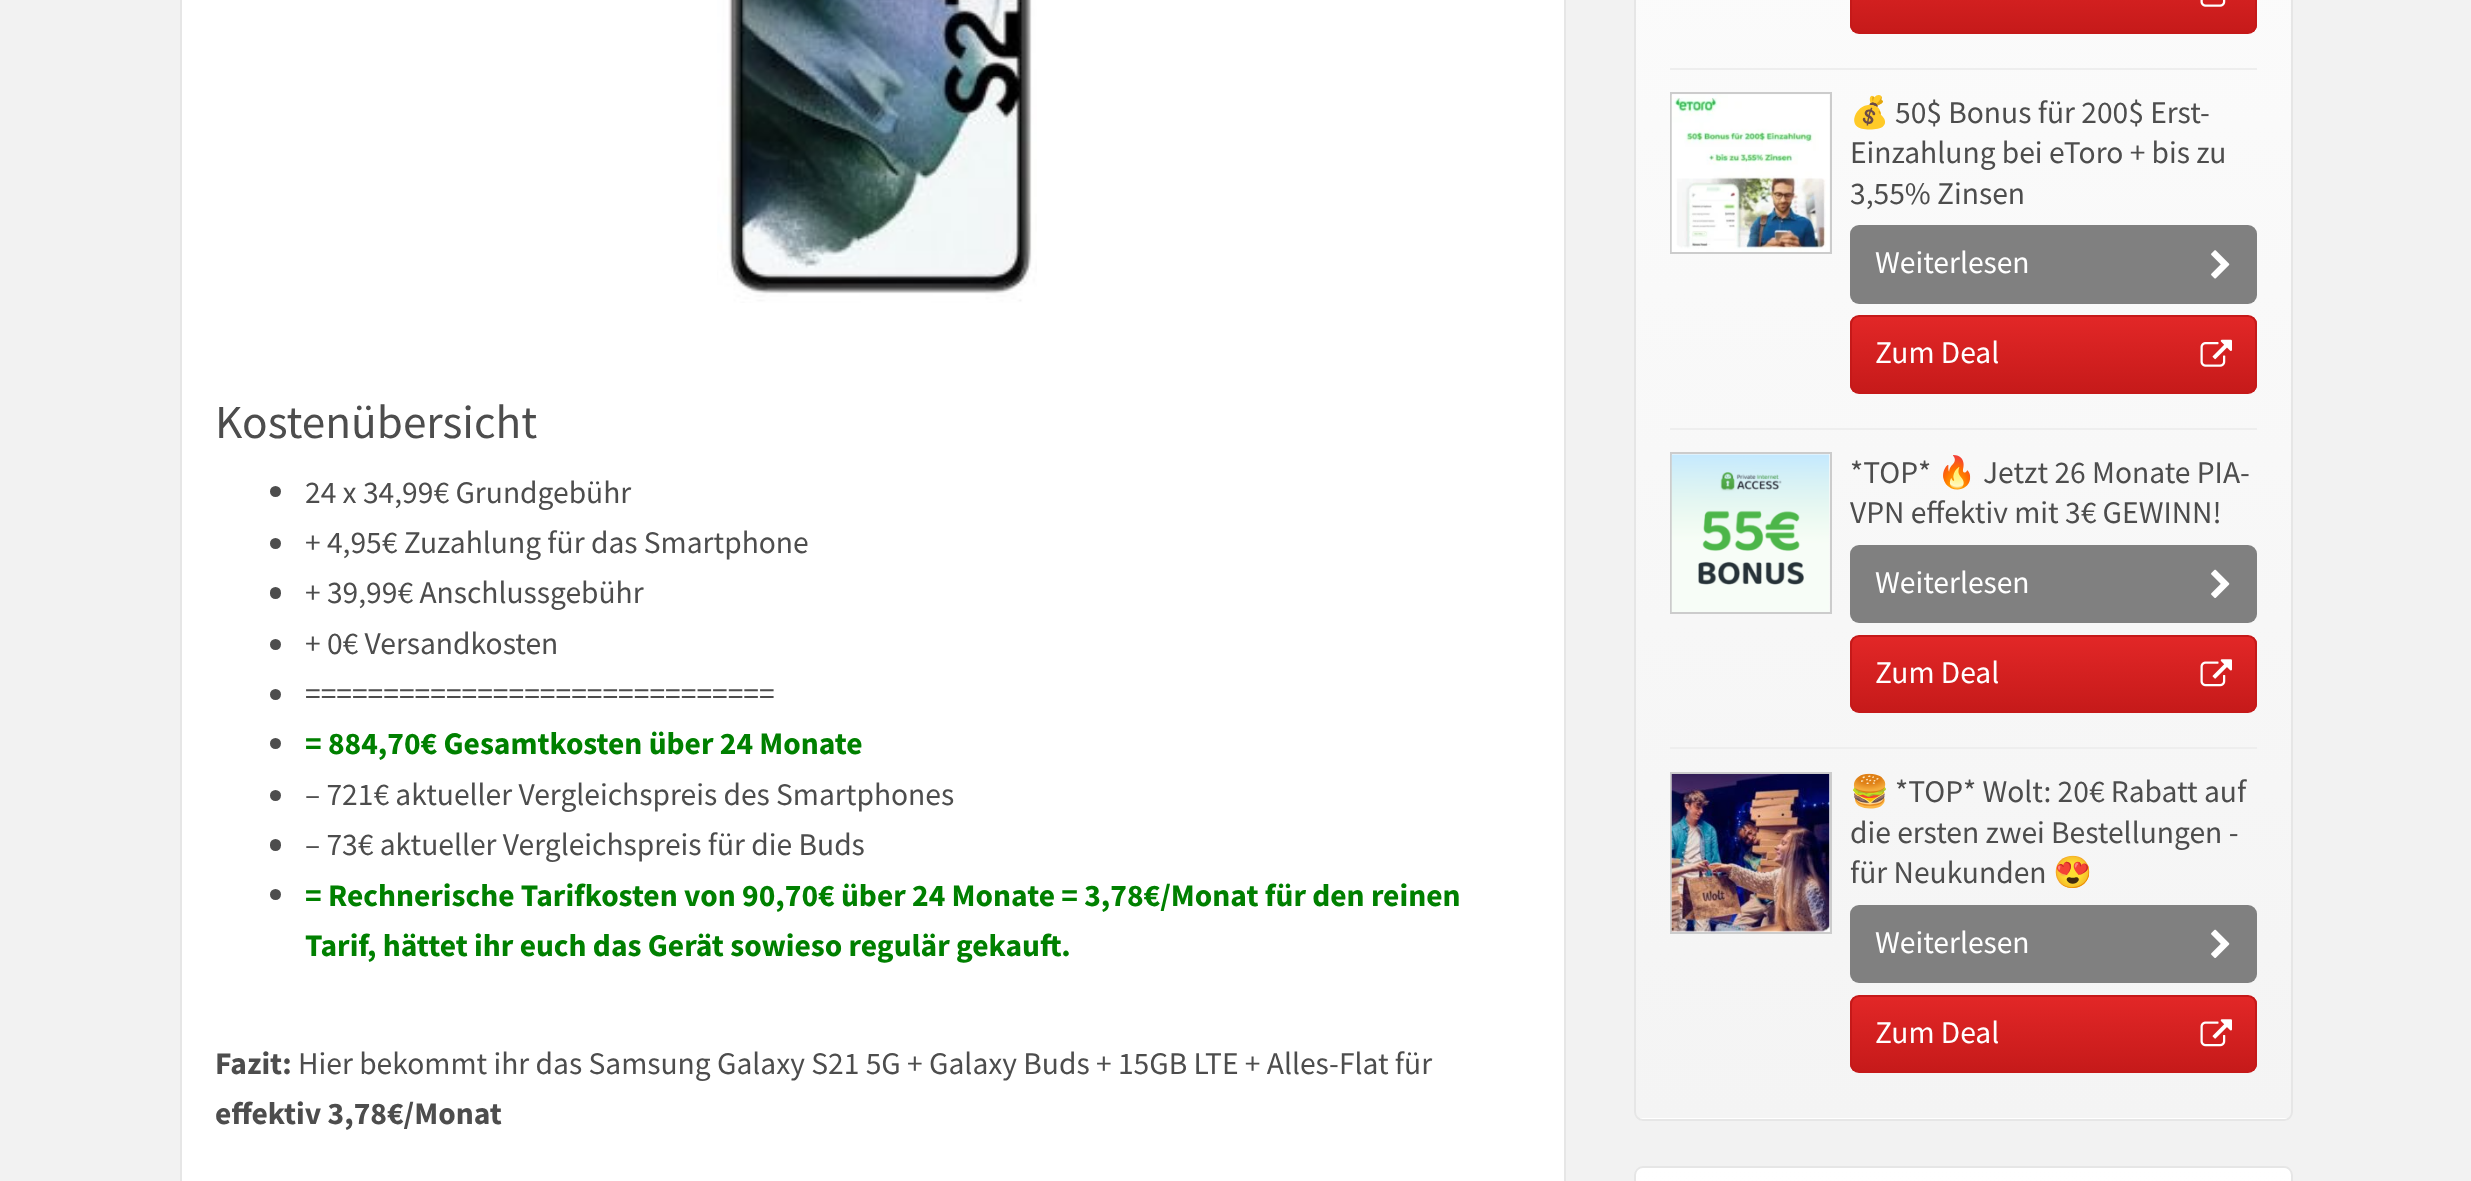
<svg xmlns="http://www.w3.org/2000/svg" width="2471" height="1181">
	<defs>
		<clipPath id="clip1"><path d="M1634-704H2293V1112C2293 1117 2289 1121 2284 1121H1643C1638 1121 1634 1117 1634 1112Z" /></clipPath>
		<linearGradient id="g1" gradientUnits="userSpaceOnUse" x1="1963" y1="-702" x2="1963" y2="1118"><stop offset="0" stop-color="#FFFFFF" /><stop offset="1" stop-color="#F4F4F4" /></linearGradient>
		<linearGradient id="g2" gradientUnits="userSpaceOnUse" x1="1963" y1="1118" x2="1963" y2="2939"><stop offset="0" stop-color="#FFFFFF" /><stop offset="1" stop-color="#F4F4F4" /></linearGradient>
		<clipPath id="clip2"><rect x="1850" y="-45" width="407" height="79" rx="9" /></clipPath>
		<linearGradient id="g3" gradientUnits="userSpaceOnUse" x1="2053" y1="-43" x2="2053" y2="32"><stop offset="0" stop-color="#E22727" /><stop offset="1" stop-color="#C61A1A" /></linearGradient>
		<clipPath id="clip3"><rect x="1850" y="92" width="407" height="313" /></clipPath>
		<clipPath id="clip4"><rect x="1850" y="315" width="407" height="79" rx="9" /></clipPath>
		<linearGradient id="g4" gradientUnits="userSpaceOnUse" x1="2053" y1="317" x2="2053" y2="392"><stop offset="0" stop-color="#E22727" /><stop offset="1" stop-color="#C61A1A" /></linearGradient>
		<clipPath id="clip5"><rect x="1850" y="635" width="407" height="78" rx="9" /></clipPath>
		<linearGradient id="g5" gradientUnits="userSpaceOnUse" x1="2053" y1="637" x2="2053" y2="711"><stop offset="0" stop-color="#E22727" /><stop offset="1" stop-color="#C61A1A" /></linearGradient>
		<clipPath id="clip6"><rect x="1850" y="772" width="407" height="313" /></clipPath>
		<clipPath id="clip7"><rect x="1850" y="995" width="407" height="78" rx="9" /></clipPath>
		<linearGradient id="g6" gradientUnits="userSpaceOnUse" x1="2053" y1="997" x2="2053" y2="1071"><stop offset="0" stop-color="#E22727" /><stop offset="1" stop-color="#C61A1A" /></linearGradient>
		<clipPath id="clip8"><rect x="1634" y="1166" width="659" height="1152" rx="9" /></clipPath>
		<linearGradient id="g7" gradientUnits="userSpaceOnUse" x1="1963" y1="1168" x2="1963" y2="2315"><stop offset="0" stop-color="#FFFFFF" /><stop offset="1" stop-color="#F4F4F4" /></linearGradient>
	</defs>
	<rect width="100%" height="100%" fill="#F2F2F2" />
	<rect x="181" y="-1" width="1384" height="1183" fill="#FFFFFF" stroke="#E6E6E6" stroke-width="2" />
	<image x="717" y="0" width="320" height="303" href="assets/img1.png" />
	<text x="215" y="438" font-family="Source Sans Pro" font-size="47.25" fill="#4D4D4D">Kostenübersicht</text>
	<circle cx="275.5" cy="491.5" r="5.5" fill="#4D4D4D" />
	<text x="305" y="503" font-family="Source Sans Pro" font-size="31.5" fill="#4D4D4D">24 x 34,99€ Grundgebühr</text>
	<circle cx="275.5" cy="543.5" r="5.5" fill="#4D4D4D" />
	<text x="305" y="553" font-family="Source Sans Pro" font-size="31.5" fill="#4D4D4D">+ 4,95€ Zuzahlung für das Smartphone</text>
	<rect x="270" y="587" width="11" height="12" rx="5.5" fill="#4D4D4D" />
	<text x="305" y="603" font-family="Source Sans Pro" font-size="31.5" fill="#4D4D4D">+ 39,99€ Anschlussgebühr</text>
	<circle cx="275.5" cy="644.5" r="5.5" fill="#4D4D4D" />
	<text x="305" y="654" font-family="Source Sans Pro" font-size="31.5" fill="#4D4D4D">+ 0€ Versandkosten</text>
	<circle cx="275.5" cy="694.5" r="5.5" fill="#4D4D4D" />
	<text x="305" y="704" font-family="Source Sans Pro" font-size="31.5" fill="#4D4D4D">==============================</text>
	<circle cx="275.5" cy="743.5" r="5.5" fill="#4D4D4D" />
	<text x="305" y="754" font-family="Source Sans Pro" font-size="31.5" font-weight="700" fill="#008000">= 884,70€ Gesamtkosten über 24 Monate</text>
	<circle cx="275.5" cy="795.5" r="5.5" fill="#4D4D4D" />
	<text x="305" y="805" font-family="Source Sans Pro" font-size="31.5" fill="#4D4D4D">– 721€ aktueller Vergleichspreis des Smartphones</text>
	<rect x="270" y="839" width="11" height="12" rx="5.5" fill="#4D4D4D" />
	<text x="305" y="855" font-family="Source Sans Pro" font-size="31.5" fill="#4D4D4D">– 73€ aktueller Vergleichspreis für die Buds</text>
	<circle cx="275.5" cy="894.5" r="5.5" fill="#4D4D4D" />
	<g font-family="Source Sans Pro" font-size="31.5" font-weight="700" fill="#008000">
		<text x="305" y="906">= Rechnerische Tarifkosten von 90,70€ über 24 Monate = 3,78€/Monat für den reinen</text>
		<text x="305" y="956">Tarif, hättet ihr euch das Gerät sowieso regulär gekauft.</text>
	</g>
	<text x="215" y="1074" font-family="Source Sans Pro" font-size="31.5" font-weight="700" fill="#4D4D4D">Fazit:</text>
	<text x="298" y="1074" font-family="Source Sans Pro" font-size="31.5" fill="#4D4D4D">Hier bekommt ihr das Samsung Galaxy S21 5G + Galaxy Buds + 15GB LTE + Alles-Flat für</text>
	<text x="215" y="1124" font-family="Source Sans Pro" font-size="31.5" font-weight="700" fill="#4D4D4D">effektiv 3,78€/Monat</text>
	<g clip-path="url(#clip1)">
		<rect x="1634" y="0" width="659" height="1118" fill="url(#g1)" />
		<rect x="1634" y="1118" width="659" height="3" fill="url(#g2)" />
	</g>
	<path d="M1635-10H2292V1112C2292 1116.5 2288.5 1120 2284 1120H1643C1638.5 1120 1635 1116.5 1635 1112Z" fill="none" stroke="#E6E6E6" stroke-width="2" />
	<rect x="1670" y="68" width="587" height="2" fill="#EEEEEE" />
	<g clip-path="url(#clip2)">
		<rect x="1850" y="0" width="407" height="32" fill="url(#g3)" />
	</g>
	<rect x="1851" y="-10" width="405" height="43" rx="8" fill="none" stroke="#C51919" stroke-width="2" />
	<image x="2200" y="0" width="26" height="7" href="assets/img2.png" />
	<rect x="1670" y="428" width="587" height="2" fill="#EEEEEE" />
	<rect x="1671" y="93" width="160" height="160" fill="none" stroke="#CCCCCC" stroke-width="2" />
	<image x="1671" y="94" width="158" height="158" href="assets/img3.png" />
	<g clip-path="url(#clip3)">
		<text x="1850" y="123" font-family="Noto Color Emoji" font-size="31.5" fill="#4D4D4D">💰</text>
	</g>
	<g font-family="Source Sans Pro" font-size="31.5" fill="#4D4D4D">
		<text x="1895" y="123">50$ Bonus für 200$ Erst-</text>
		<text x="1850" y="163">Einzahlung bei eToro + bis zu</text>
		<text x="1850" y="204">3,55% Zinsen</text>
	</g>
	<rect x="1850" y="225" width="407" height="79" rx="9" fill="#808080" />
	<text x="1875" y="273" font-family="Source Sans Pro" font-size="31.5" fill="#FFFFFF">Weiterlesen</text>
	<image x="2211" y="250" width="19" height="29" href="assets/img4.png" />
	<g clip-path="url(#clip4)">
		<rect x="1850" y="317" width="407" height="75" fill="url(#g4)" />
	</g>
	<rect x="1851" y="316" width="405" height="77" rx="8" fill="none" stroke="#C51919" stroke-width="2" />
	<text x="1875" y="363" font-family="Source Sans Pro" font-size="31.5" fill="#FFFFFF">Zum Deal</text>
	<image x="2200" y="339" width="32" height="28" href="assets/img5.png" />
	<rect x="1670" y="747" width="587" height="2" fill="#EEEEEE" />
	<rect x="1671" y="453" width="160" height="160" fill="none" stroke="#CCCCCC" stroke-width="2" />
	<image x="1671" y="454" width="159" height="158" href="assets/img6.png" />
	<text x="1850" y="483" font-family="Source Sans Pro" font-size="31.5" fill="#4D4D4D">*TOP*</text>
	<text x="1937" y="483" font-family="Noto Color Emoji" font-size="31.5" fill="#4D4D4D">🔥</text>
	<g font-family="Source Sans Pro" font-size="31.5" fill="#4D4D4D">
		<text x="1983" y="483">Jetzt 26 Monate PIA-</text>
		<text x="1850" y="523">VPN effektiv mit 3€ GEWINN!</text>
	</g>
	<rect x="1850" y="545" width="407" height="78" rx="9" fill="#808080" />
	<text x="1875" y="593" font-family="Source Sans Pro" font-size="31.5" fill="#FFFFFF">Weiterlesen</text>
	<image x="2211" y="569" width="19" height="29" href="assets/img7.png" />
	<g clip-path="url(#clip5)">
		<rect x="1850" y="637" width="407" height="74" fill="url(#g5)" />
	</g>
	<rect x="1851" y="636" width="405" height="76" rx="8" fill="none" stroke="#C51919" stroke-width="2" />
	<text x="1875" y="683" font-family="Source Sans Pro" font-size="31.5" fill="#FFFFFF">Zum Deal</text>
	<image x="2200" y="659" width="32" height="28" href="assets/img8.png" />
	<rect x="1671" y="773" width="160" height="160" fill="none" stroke="#CCCCCC" stroke-width="2" />
	<image x="1671" y="774" width="159" height="158" href="assets/img9.png" />
	<g clip-path="url(#clip6)">
		<text x="1850" y="802" font-family="Noto Color Emoji" font-size="31.5" fill="#4D4D4D">🍔</text>
	</g>
	<g font-family="Source Sans Pro" font-size="31.5" fill="#4D4D4D">
		<text x="1895" y="802">*TOP* Wolt: 20€ Rabatt auf</text>
		<text x="1850" y="843">die ersten zwei Bestellungen -</text>
		<text x="1850" y="883">für Neukunden</text>
	</g>
	<text x="2053" y="883" font-family="Noto Color Emoji" font-size="31.5" fill="#4D4D4D">😍</text>
	<rect x="1850" y="905" width="407" height="78" rx="9" fill="#808080" />
	<text x="1875" y="953" font-family="Source Sans Pro" font-size="31.5" fill="#FFFFFF">Weiterlesen</text>
	<image x="2211" y="929" width="19" height="29" href="assets/img7.png" />
	<g clip-path="url(#clip7)">
		<rect x="1850" y="997" width="407" height="74" fill="url(#g6)" />
	</g>
	<rect x="1851" y="996" width="405" height="76" rx="8" fill="none" stroke="#C51919" stroke-width="2" />
	<text x="1875" y="1043" font-family="Source Sans Pro" font-size="31.5" fill="#FFFFFF">Zum Deal</text>
	<image x="2200" y="1019" width="32" height="28" href="assets/img8.png" />
	<g clip-path="url(#clip8)">
		<rect x="1634" y="1168" width="659" height="13" fill="url(#g7)" />
	</g>
	<rect x="1635" y="1167" width="657" height="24" rx="8" fill="none" stroke="#E6E6E6" stroke-width="2" />
</svg>
